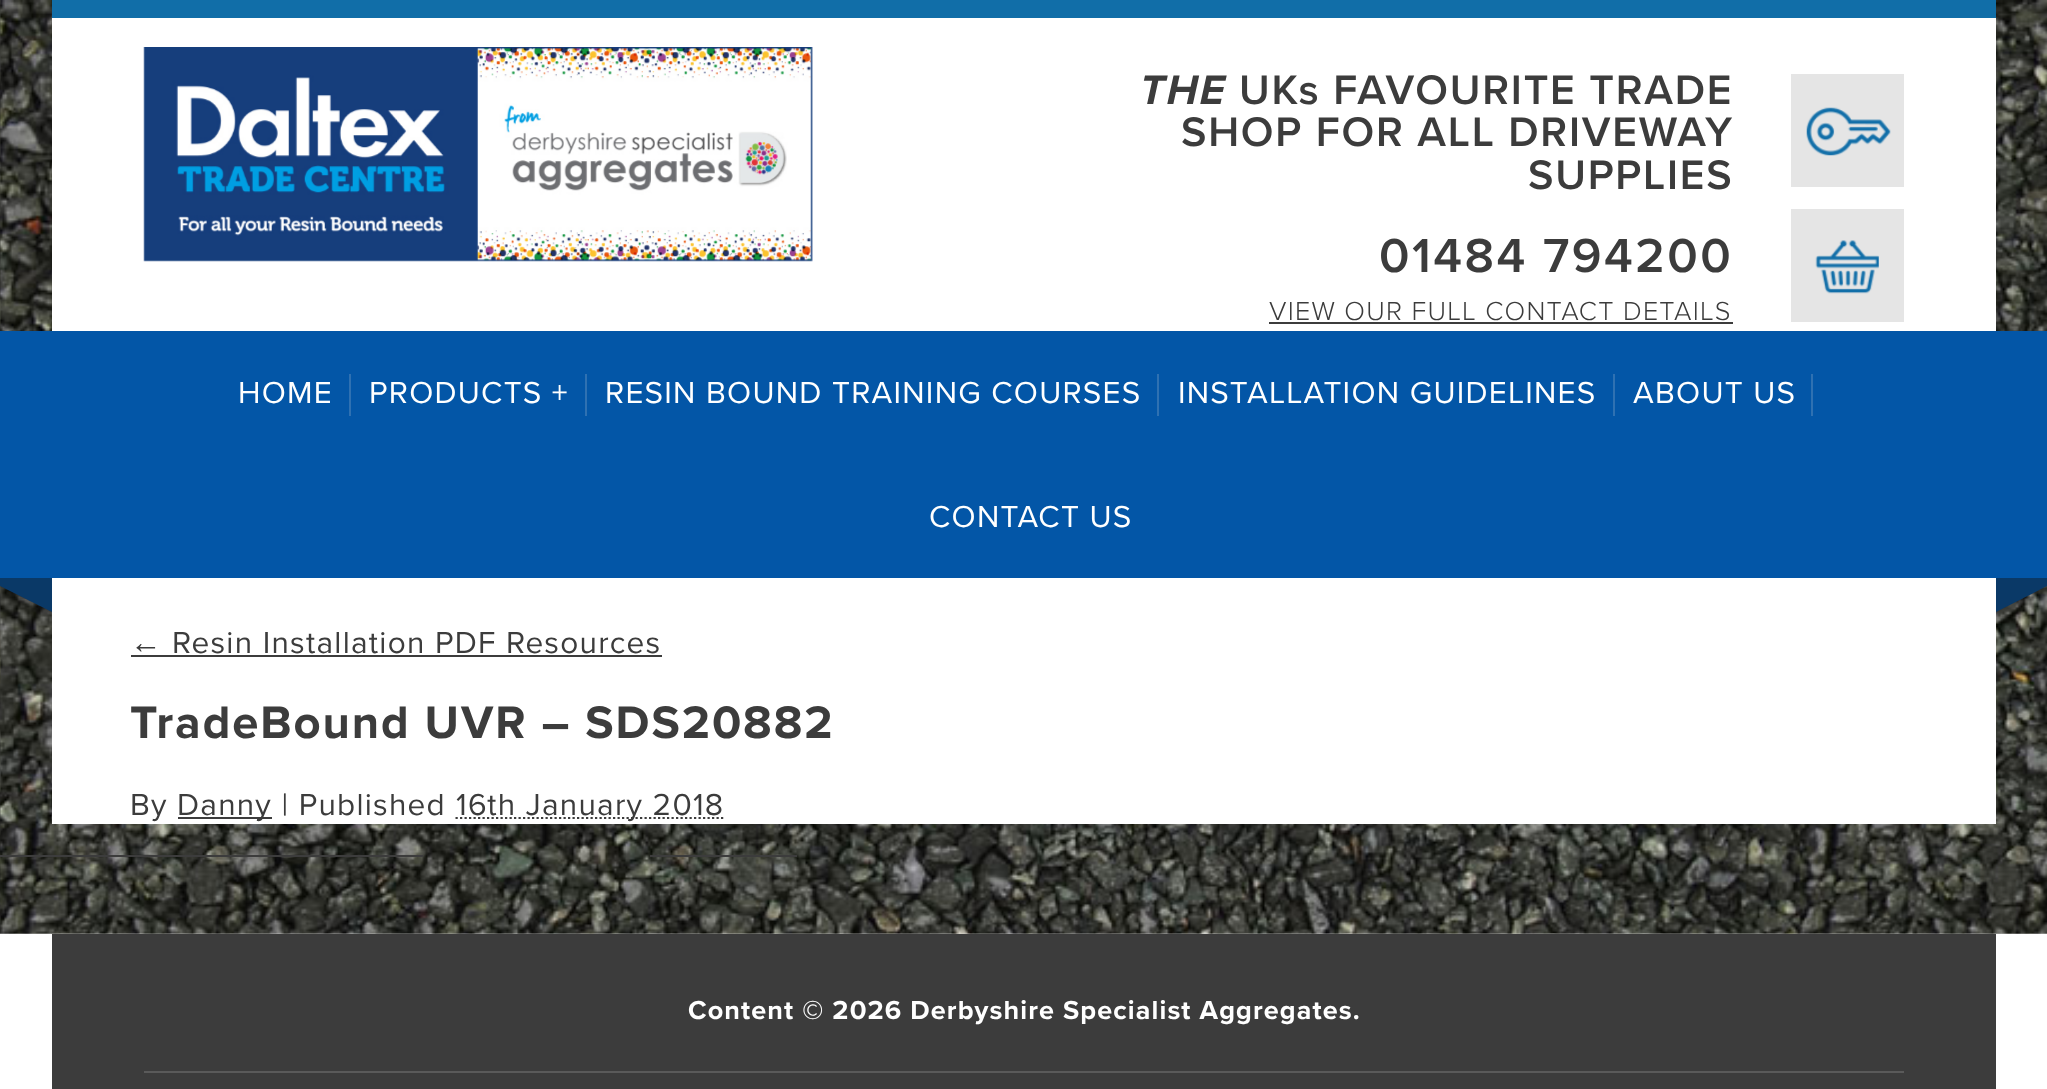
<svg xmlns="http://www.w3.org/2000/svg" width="2047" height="1089">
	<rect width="100%" height="100%" fill="#FFFFFF" />
	<image x="0" y="0" width="2047" height="934" href="assets/img1.png" />
	<rect x="52" y="18" width="1944" height="806" fill="#FFFFFF" />
	<rect x="52" y="0" width="1944" height="18" fill="#116EA8" />
	<image x="143" y="47" width="670" height="215" href="assets/img2.png" />
	<text x="1140" y="104" font-family="Proxima Nova" font-size="42.75" font-weight="700" font-style="italic" letter-spacing="1.75" fill="#3C3C3C">THE</text>
	<g font-family="Proxima Nova" font-size="42.75" font-weight="600" letter-spacing="1.75" fill="#3C3C3C">
		<text x="1239" y="104">UKs FAVOURITE TRADE</text>
		<text x="1181" y="146">SHOP FOR ALL DRIVEWAY</text>
		<text x="1528" y="189">SUPPLIES</text>
	</g>
	<text x="1379" y="272" font-family="Proxima Nova" font-size="49.5" font-weight="600" letter-spacing="2.5" fill="#3C3C3C">01484 794200</text>
	<text x="1269" y="320" font-family="Proxima Nova" font-size="27" font-weight="300" letter-spacing="1.25" fill="#3C3C3C">VIEW OUR FULL CONTACT DETAILS</text>
	<rect x="1269" y="322" width="464" height="2" fill="#3C3C3C" />
	<rect x="1791" y="74" width="113" height="113" fill="#E5E5E5" />
	<image x="1806" y="107" width="85" height="49" href="assets/img3.png" />
	<rect x="1791" y="209" width="113" height="113" fill="#E5E5E5" />
	<image x="1815" y="240" width="64" height="54" href="assets/img4.png" />
	<rect x="0" y="331" width="2047" height="247" fill="#0356A7" />
	<text x="238" y="403" font-family="Proxima Nova" font-size="31.5" letter-spacing="1.25" fill="#FFFFFF">HOME</text>
	<rect x="349" y="374" width="2" height="42" fill="#2F71B2" />
	<text x="369" y="403" font-family="Proxima Nova" font-size="31.5" letter-spacing="1.25" fill="#FFFFFF">PRODUCTS +</text>
	<rect x="585" y="374" width="2" height="42" fill="#2F71B2" />
	<text x="605" y="403" font-family="Proxima Nova" font-size="31.5" letter-spacing="1.25" fill="#FFFFFF">RESIN BOUND TRAINING COURSES</text>
	<rect x="1157" y="374" width="2" height="42" fill="#2F71B2" />
	<text x="1178" y="403" font-family="Proxima Nova" font-size="31.5" letter-spacing="1.25" fill="#FFFFFF">INSTALLATION GUIDELINES</text>
	<rect x="1613" y="374" width="2" height="42" fill="#2F71B2" />
	<text x="1633" y="403" font-family="Proxima Nova" font-size="31.5" letter-spacing="1.25" fill="#FFFFFF">ABOUT US</text>
	<rect x="1811" y="374" width="2" height="42" fill="#2F71B2" />
	<text x="929" y="527" font-family="Proxima Nova" font-size="31.5" letter-spacing="1.25" fill="#FFFFFF">CONTACT US</text>
	<path d="M52 578V612L-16 578Z" fill="#0A3967" />
	<path d="M1996 578H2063L1996 612Z" fill="#0A3967" />
	<text x="130" y="653" font-family="Liberation Sans" font-size="31.5" letter-spacing="1.25" fill="#3C3C3C">←</text>
	<rect x="131" y="655" width="531" height="2" fill="#3C3C3C" />
	<text x="172" y="653" font-family="Proxima Nova" font-size="31.5" letter-spacing="1.25" fill="#3C3C3C">Resin Installation PDF Resources</text>
	<text x="130" y="738" font-family="Proxima Nova" font-size="47.25" font-weight="700" letter-spacing="1.9" fill="#3C3C3C">TradeBound UVR – SDS20882</text>
	<text x="130" y="815" font-family="Proxima Nova" font-size="31.5" letter-spacing="1.25" fill="#3C3C3C">By</text>
	<rect x="178" y="817" width="94" height="2" fill="#3C3C3C" />
	<text x="177" y="815" font-family="Proxima Nova" font-size="31.5" letter-spacing="1.25" fill="#3C3C3C">Danny | Published</text>
	<path d="M455.5 818H724.5" fill="none" stroke="#3C3C3C" stroke-width="2.2" stroke-dasharray="2.25 2.25" />
	<text x="456" y="815" font-family="Proxima Nova" font-size="31.5" letter-spacing="1.25" fill="#3C3C3C">16th January 2018</text>
	<rect x="0" y="855" width="423" height="2" fill="#3C3C3C" />
	<rect x="650" y="855" width="147" height="2" fill="#3C3C3C" />
	<rect x="52" y="934" width="1944" height="155" fill="#3C3C3C" />
	<rect x="144" y="1071" width="1760" height="2" fill="#5A5A5A" />
	<text x="688" y="1019" font-family="Proxima Nova" font-size="27" font-weight="700" letter-spacing="1.1" fill="#FFFFFF">Content © 2026 Derbyshire Specialist Aggregates.</text>
</svg>
